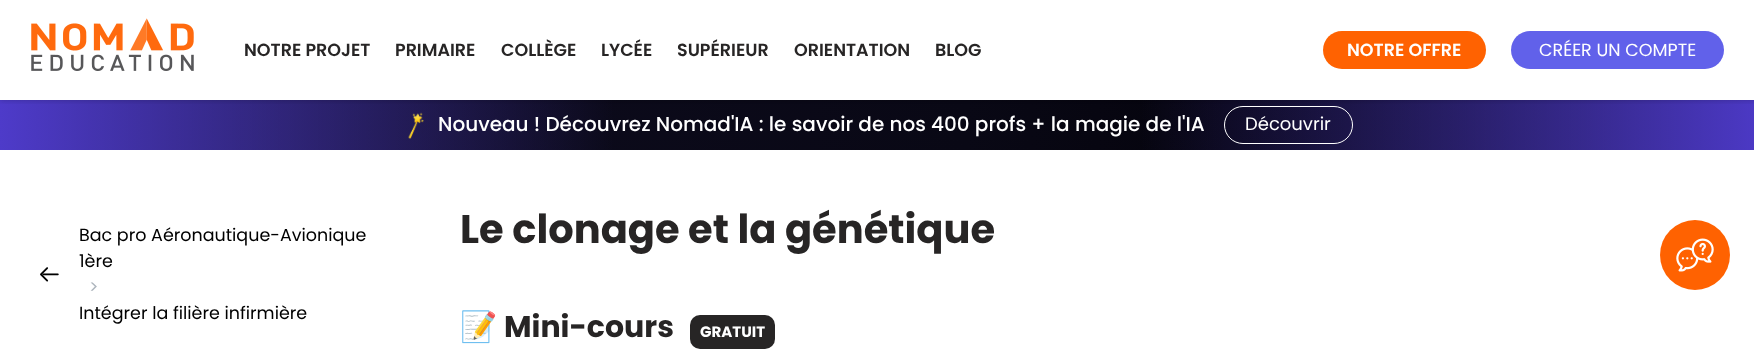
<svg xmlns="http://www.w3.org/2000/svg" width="1754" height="352">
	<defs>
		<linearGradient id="g1" gradientUnits="userSpaceOnUse" x1="0" y1="125" x2="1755" y2="125"><stop offset="0" stop-color="#0F0D22" /><stop offset="0.55" stop-color="#090815" /><stop offset="0.7" stop-color="#05040D" /><stop offset="1" stop-color="#000000" /></linearGradient>
		<linearGradient id="g2" gradientUnits="userSpaceOnUse" x1="0" y1="125" x2="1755" y2="125"><stop offset="0" stop-color="#5943E7" stop-opacity="0.85" /><stop offset="0.1" stop-color="#5943E7" stop-opacity="0.6" /><stop offset="0.35" stop-color="#5943E7" stop-opacity="0" /><stop offset="0.65" stop-color="#5943E7" stop-opacity="0" /><stop offset="0.9" stop-color="#5943E7" stop-opacity="0.6" /><stop offset="1" stop-color="#5943E7" stop-opacity="0.85" /></linearGradient>
		<clipPath id="clip1"><rect x="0" y="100" width="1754" height="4" /></clipPath>
	</defs>
	<rect width="100%" height="100%" fill="#FFFFFF" />
	<rect x="0" y="100" width="1754" height="50" fill="url(#g1)" />
	<rect x="0" y="100" width="1754" height="50" fill="url(#g2)" />
	<rect x="1224.5" y="106.5" width="128" height="37" rx="18.5" fill="none" stroke="#FFFFFF" />
	<g clip-path="url(#clip1)">
		<rect x="0" y="1" width="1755" height="100" fill="#000000" fill-opacity="0.16" filter="blur(2.5px)" />
	</g>
	<image x="31" y="18" width="163" height="53" href="assets/img1.png" />
	<g font-family="Poppins" font-size="17.5" font-weight="600" fill="#272525">
		<text x="244" y="56">NOTRE PROJET</text>
		<text x="395" y="56">PRIMAIRE</text>
		<text x="501" y="56">COLLÈGE</text>
		<text x="601" y="56">LYCÉE</text>
		<text x="677" y="56">SUPÉRIEUR</text>
		<text x="794" y="56">ORIENTATION</text>
		<text x="935" y="56">BLOG</text>
	</g>
	<rect x="1323" y="31" width="163" height="38" rx="19" fill="#FF6201" />
	<text x="1347" y="56" font-family="Poppins" font-size="17.5" font-weight="600" fill="#FFFFFF">NOTRE OFFRE</text>
	<rect x="1511" y="31" width="213" height="38" rx="19" fill="#6161EA" />
	<text x="1539" y="56" font-family="Poppins" font-size="17.5" fill="#FFFFFF">CRÉER UN COMPTE</text>
	<image x="408" y="112" width="16" height="27" href="assets/img2.png" />
	<text x="438" y="131" font-family="Poppins" font-size="20" font-weight="500" fill="#FFFFFF">Nouveau ! Découvrez Nomad'IA : le savoir de nos 400 profs + la magie de l'IA</text>
	<text x="1245" y="130" font-family="Poppins" font-size="18" fill="#FFFFFF">Découvrir</text>
	<image x="40" y="267" width="19" height="15" href="assets/img3.png" />
	<g font-family="Poppins" font-size="17.5" fill="#000000">
		<text x="79" y="241">Bac pro Aéronautique-Avionique</text>
		<text x="79" y="267">1ère</text>
	</g>
	<text x="89" y="293" font-family="Poppins" font-size="17.5" fill="#ADB5BD">&gt;</text>
	<text x="79" y="319" font-family="Poppins" font-size="17.5" fill="#000000">Intégrer la filière infirmière</text>
	<text x="460" y="243" font-family="Poppins" font-size="40" font-weight="700" fill="#272525">Le clonage et la génétique</text>
	<text x="460" y="337" font-family="Noto Color Emoji" font-size="30" fill="#272525">📝</text>
	<text x="504" y="337" font-family="Poppins" font-size="30" font-weight="700" fill="#272525">Mini-cours</text>
	<rect x="690" y="315" width="85" height="34" rx="10" fill="#272525" />
	<text x="700" y="337" font-family="Poppins" font-size="15" font-weight="700" fill="#FFFFFF">GRATUIT</text>
	<circle cx="1695" cy="255" r="35" fill="#FF6201" />
	<image x="1676" y="238" width="38" height="34" href="assets/img4.png" />
</svg>
